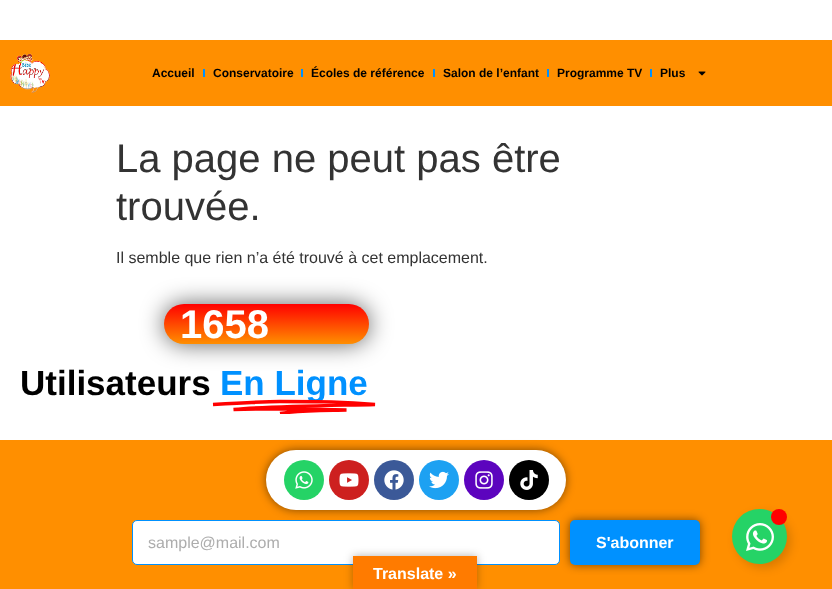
<svg xmlns="http://www.w3.org/2000/svg" width="832" height="589">
	<defs>
		<linearGradient id="g1" gradientUnits="userSpaceOnUse" x1="267" y1="304" x2="267" y2="344"><stop offset="0" stop-color="#FF0000" /><stop offset="1" stop-color="#FF8F00" /></linearGradient>
		<clipPath id="clip1"><rect x="210" y="352" width="168" height="62" /></clipPath>
	</defs>
	<rect width="100%" height="100%" fill="#FFFFFF" />
	<rect x="0" y="40" width="832" height="66" fill="#FF8F00" />
	<image x="10" y="53" width="40" height="40" href="assets/img1.png" />
	<text x="152" y="77" font-family="Liberation Sans" font-size="12" font-weight="700" fill="#000000">Accueil</text>
	<rect x="203" y="69" width="2" height="8" fill="#0091FF" />
	<text x="213" y="77" font-family="Liberation Sans" font-size="12" font-weight="700" fill="#000000">Conservatoire</text>
	<rect x="301" y="69" width="2" height="8" fill="#0091FF" />
	<text x="311" y="77" font-family="Liberation Sans" font-size="12" font-weight="700" fill="#000000">Écoles de référence</text>
	<rect x="433" y="69" width="2" height="8" fill="#0091FF" />
	<text x="443" y="77" font-family="Liberation Sans" font-size="12" font-weight="700" fill="#000000">Salon de l’enfant</text>
	<rect x="547" y="69" width="2" height="8" fill="#0091FF" />
	<text x="557" y="77" font-family="Liberation Sans" font-size="12" font-weight="700" fill="#000000">Programme TV</text>
	<rect x="650" y="69" width="2" height="8" fill="#0091FF" />
	<text x="660" y="77" font-family="Liberation Sans" font-size="12" font-weight="700" fill="#000000">Plus</text>
	<image x="698" y="71" width="8" height="5" href="assets/img2.png" />
	<g font-family="Liberation Sans" font-size="40" fill="#333333">
		<text x="116" y="172">La page ne peut pas être</text>
		<text x="116" y="220">trouvée.</text>
	</g>
	<text x="116" y="263" font-family="Liberation Sans" font-size="16" fill="#333333">Il semble que rien n’a été trouvé à cet emplacement.</text>
	<rect x="164" y="304" width="205" height="40" rx="20" fill="#000000" fill-opacity="0.62" filter="blur(11.5px)" />
	<rect x="164" y="304" width="205" height="40" rx="20" fill="url(#g1)" />
	<text x="180" y="338" font-family="Liberation Sans" font-size="40" font-weight="700" fill="#FFFFFF">1658</text>
	<text x="20" y="395" font-family="Liberation Sans" font-size="35" font-weight="700" fill="#000000">Utilisateurs</text>
	<text x="220" y="395" font-family="Liberation Sans" font-size="35" font-weight="700" fill="#0091FF">En Ligne</text>
	<g clip-path="url(#clip1)">
		<path d="M213 404.5C230 403.5 264 401.5 280 401.5C321 401.5 344 401.5 375 404.5C337.5 405.5 271 406 233.5 409.5C261.5 408.5 319 409 346.5 410C327.5 410.5 300.5 410 280 413.5" fill="none" stroke="#FF0000" stroke-width="3.4" />
	</g>
	<rect x="0" y="440" width="832" height="135" fill="#FF8F00" />
	<rect x="266" y="450" width="300" height="60" rx="30" fill="#000000" fill-opacity="0.5" filter="blur(5px)" />
	<rect x="266" y="450" width="300" height="60" rx="30" fill="#FFFFFF" />
	<circle cx="304" cy="480" r="20" fill="#25D366" />
	<image x="295" y="471" width="18" height="18" href="assets/img3.png" />
	<circle cx="349" cy="480" r="20" fill="#CD201F" />
	<image x="339" y="473" width="20" height="14" href="assets/img4.png" />
	<circle cx="394" cy="480" r="20" fill="#3B5998" />
	<image x="384" y="470" width="20" height="20" href="assets/img5.png" />
	<circle cx="439" cy="480" r="20" fill="#1DA1F2" />
	<image x="429" y="471" width="20" height="18" href="assets/img6.png" />
	<circle cx="484" cy="480" r="20" fill="#5C04BE" />
	<image x="475" y="471" width="18" height="18" href="assets/img7.png" />
	<circle cx="529" cy="480" r="20" fill="#000000" />
	<image x="520" y="470" width="18" height="20" href="assets/img8.png" />
	<rect x="132.5" y="520.5" width="427" height="44" rx="4.5" fill="#FFFFFF" stroke="#0091FF" />
	<text x="148" y="548" font-family="Liberation Sans" font-size="16" fill="#ADADAD">sample@mail.com</text>
	<rect x="570" y="520" width="130" height="45" rx="5" fill="#000000" fill-opacity="0.5" filter="blur(5px)" />
	<rect x="570" y="520" width="130" height="45" rx="5" fill="#0091FF" />
	<text x="596" y="548" font-family="Liberation Sans" font-size="16" font-weight="700" fill="#FFFFFF">S'abonner</text>
	<rect x="0" y="575" width="832" height="14" fill="#FF8F00" />
	<rect x="736" y="513" width="55" height="55" rx="27.5" fill="#000000" fill-opacity="0.15" filter="blur(5px)" />
	<circle cx="759.5" cy="536.5" r="27.5" fill="#25D366" />
	<image x="746" y="523" width="28" height="28" href="assets/img9.png" />
	<circle cx="779" cy="517" r="8" fill="#FF0000" />
	<rect x="353" y="556" width="124" height="33" fill="#000000" fill-opacity="0.3" filter="blur(4.5px)" />
	<rect x="353" y="556" width="124" height="33" fill="#FF7B00" />
	<text x="373" y="579" font-family="Liberation Sans" font-size="16" font-weight="700" fill="#FFFFFF">Translate »</text>
</svg>
